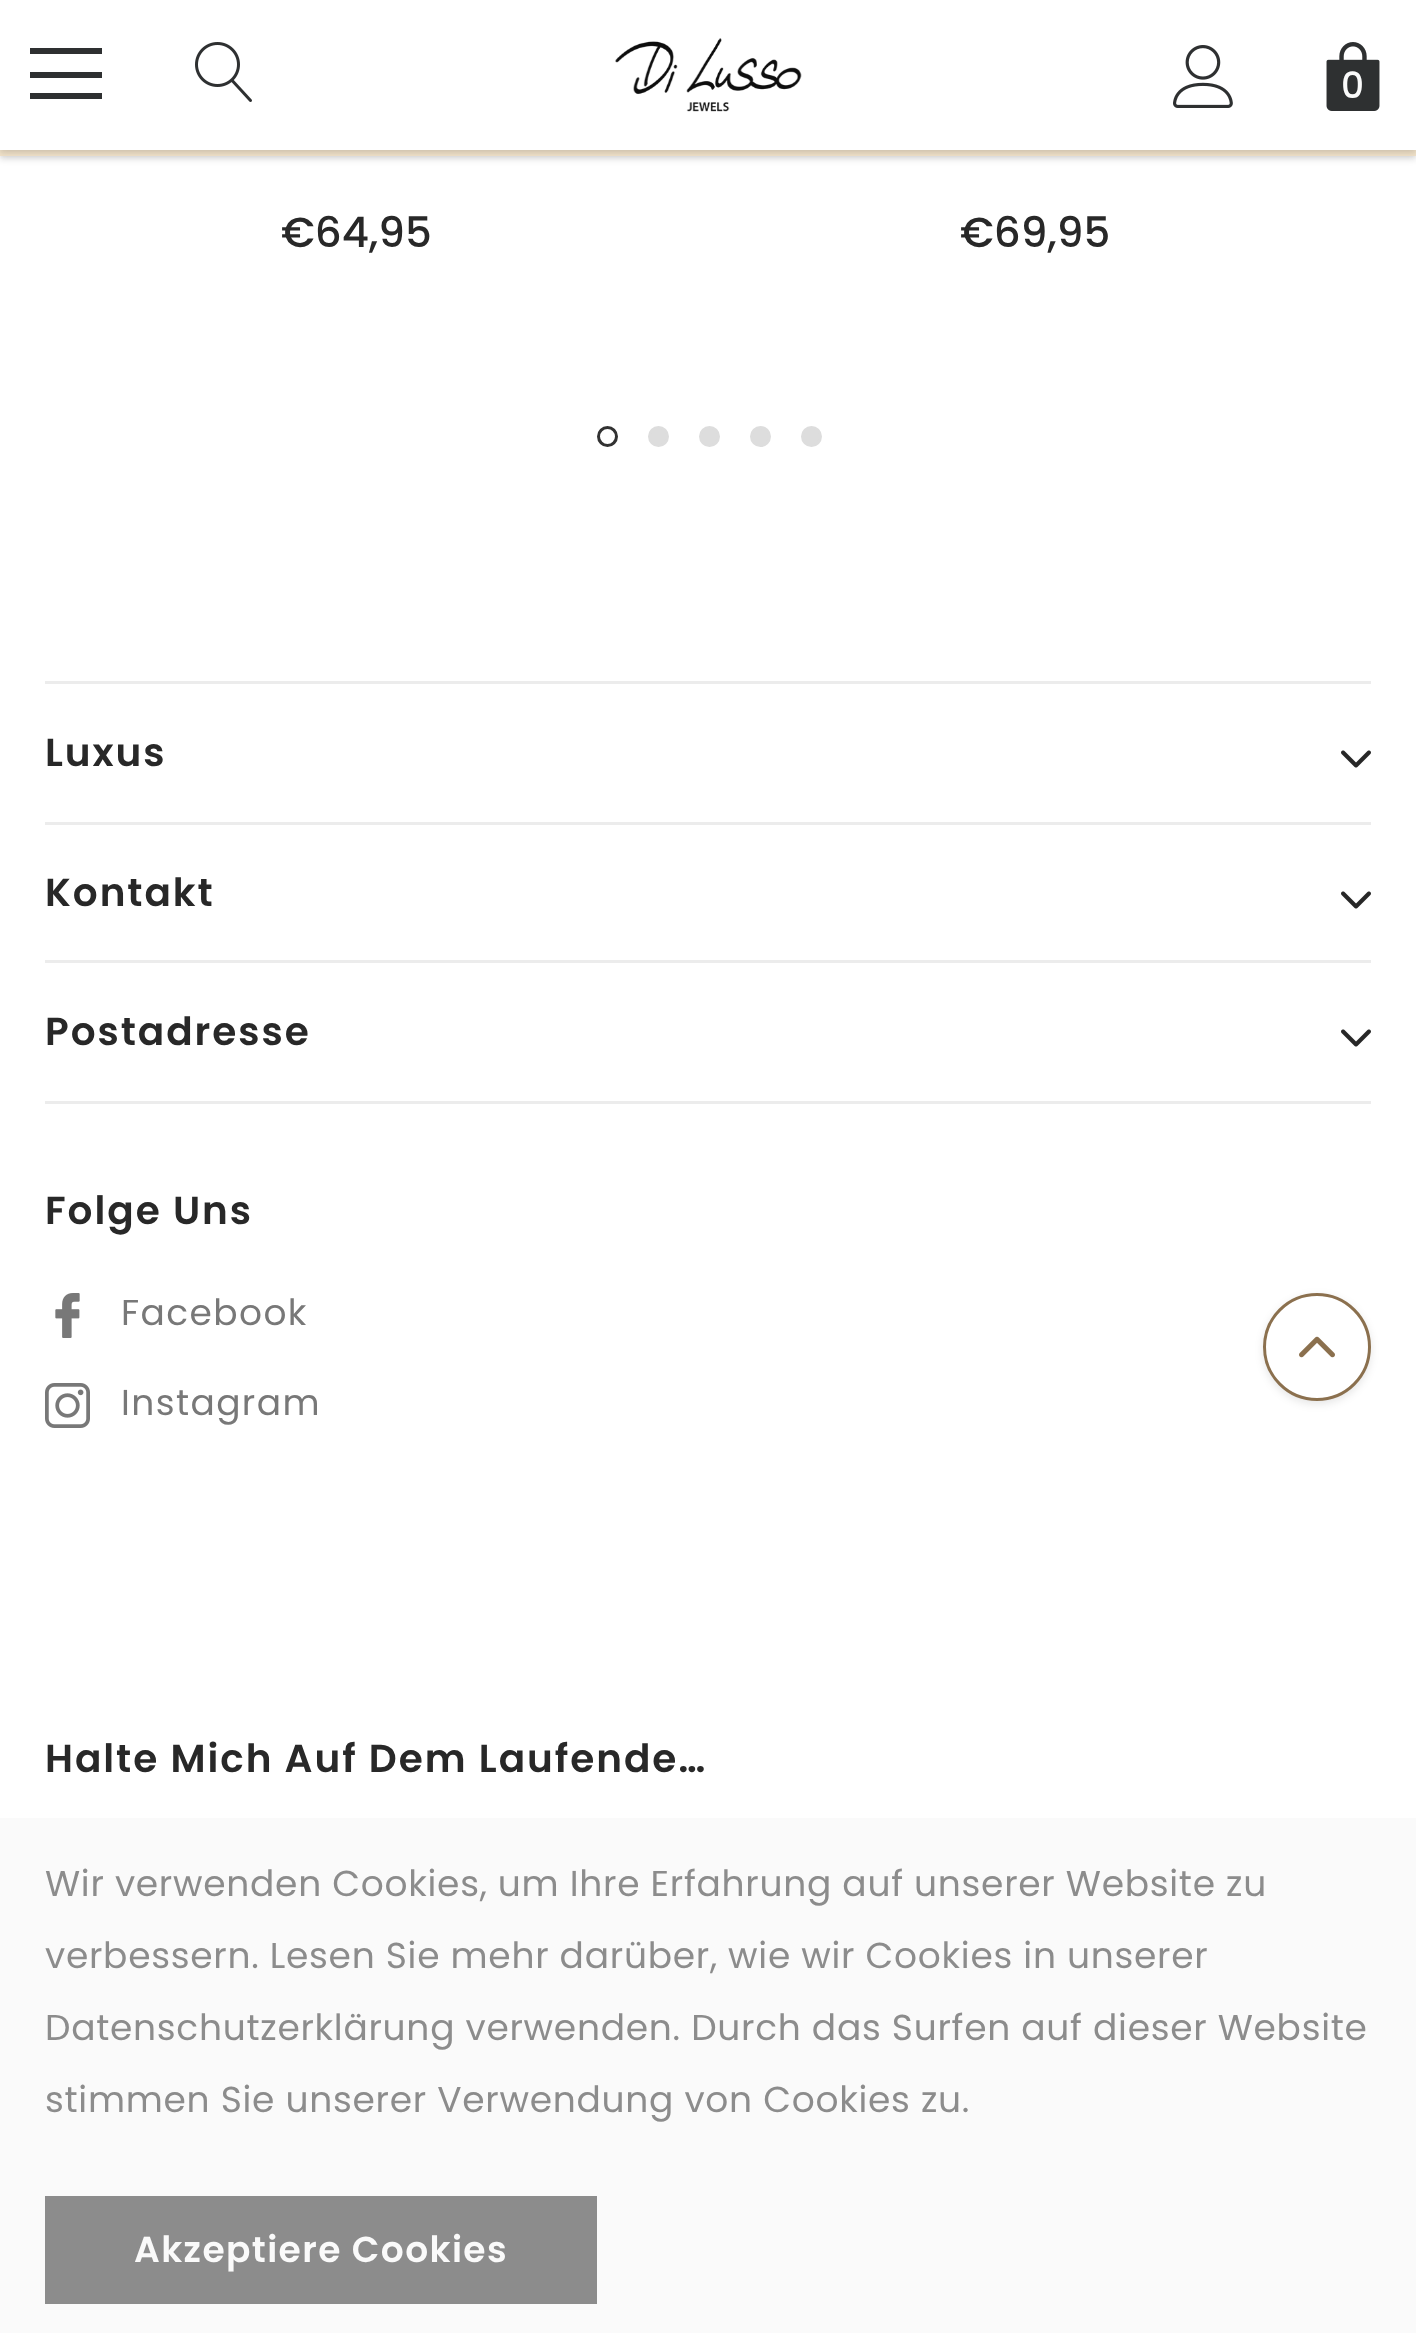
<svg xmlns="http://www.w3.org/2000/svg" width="1416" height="2333">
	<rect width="100%" height="100%" fill="#FFFFFF" />
	<rect x="0" y="3" width="1416" height="156" fill="#000000" fill-opacity="0.15" filter="blur(3px)" />
	<rect x="0" y="150" width="1416" height="6" fill="#F2E3CA" />
	<rect x="0" y="3" width="1416" height="150" fill="#000000" fill-opacity="0.15" filter="blur(3px)" />
	<rect x="0" y="0" width="1416" height="150" fill="#FFFFFF" />
	<rect x="30" y="48" width="72" height="6" fill="#2E3031" />
	<rect x="30" y="72" width="72" height="6" fill="#2E3031" />
	<rect x="30" y="93" width="72" height="6" fill="#2E3031" />
	<image x="195" y="42" width="57" height="60" href="assets/img1.png" />
	<image x="615" y="38" width="187" height="74" href="assets/img2.png" />
	<image x="1173" y="45" width="60" height="63" href="assets/img3.png" />
	<image x="1326" y="42" width="54" height="69" href="assets/img4.png" />
	<text x="1341" y="98" font-family="Poppins" font-size="36" font-weight="500" fill="#FAFAFA">0</text>
	<g font-family="Poppins" font-size="42" font-weight="500" fill="#282828">
		<text x="281" y="247">€64,95</text>
		<text x="960" y="247">€69,95</text>
	</g>
	<circle cx="607.5" cy="436.5" r="9" fill="none" stroke="#323232" stroke-width="3" />
	<circle cx="658.5" cy="436.5" r="9" fill="#DDDDDD" stroke="#DDDDDD" stroke-width="3" />
	<circle cx="709.5" cy="436.5" r="9" fill="#DDDDDD" stroke="#DDDDDD" stroke-width="3" />
	<circle cx="760.5" cy="436.5" r="9" fill="#DDDDDD" stroke="#DDDDDD" stroke-width="3" />
	<circle cx="811.5" cy="436.5" r="9" fill="#DDDDDD" stroke="#DDDDDD" stroke-width="3" />
	<rect x="45" y="681" width="1326" height="3" fill="#ECECEC" />
	<rect x="45" y="822" width="1326" height="3" fill="#ECECEC" />
	<text x="45" y="766" font-family="Poppins" font-size="39" font-weight="600" letter-spacing="1.95" fill="#282828">Luxus</text>
	<image x="1341" y="750" width="30" height="18" href="assets/img5.png" />
	<rect x="45" y="960" width="1326" height="3" fill="#ECECEC" />
	<text x="45" y="906" font-family="Poppins" font-size="39" font-weight="600" letter-spacing="1.95" fill="#282828">Kontakt</text>
	<image x="1341" y="891" width="30" height="18" href="assets/img5.png" />
	<rect x="45" y="1101" width="1326" height="3" fill="#ECECEC" />
	<text x="45" y="1045" font-family="Poppins" font-size="39" font-weight="600" letter-spacing="1.95" fill="#282828">Postadresse</text>
	<image x="1341" y="1029" width="30" height="18" href="assets/img5.png" />
	<text x="45" y="1224" font-family="Poppins" font-size="39" font-weight="600" letter-spacing="1.95" fill="#282828">Folge Uns</text>
	<image x="55" y="1293" width="25" height="45" href="assets/img6.png" />
	<text x="121" y="1325" font-family="Poppins" font-size="36" letter-spacing="1.4" fill="#787878">Facebook</text>
	<image x="45" y="1383" width="45" height="45" href="assets/img7.png" />
	<text x="121" y="1415" font-family="Poppins" font-size="36" letter-spacing="1.4" fill="#787878">Instagram</text>
	<text x="45" y="1772" font-family="Poppins" font-size="39" font-weight="600" letter-spacing="1.95" fill="#282828">Halte Mich Auf Dem Laufende…</text>
	<rect x="1263" y="1296" width="108" height="108" rx="54" fill="#000000" fill-opacity="0.1" filter="blur(4.5px)" />
	<circle cx="1317" cy="1347" r="52.5" fill="#FFFFFF" stroke="#8B704E" stroke-width="3" />
	<image x="1299" y="1336" width="36" height="22" href="assets/img8.png" />
	<rect x="0" y="1818" width="1416" height="515" fill="#FAFAFA" />
	<g font-family="Poppins" font-size="36" letter-spacing="0.72" fill="#8C8C8C">
		<text x="45" y="1896">Wir verwenden Cookies, um Ihre Erfahrung auf unserer Website zu</text>
		<text x="45" y="1968">verbessern. Lesen Sie mehr darüber, wie wir Cookies in unserer</text>
		<text x="45" y="2040">Datenschutzerklärung verwenden. Durch das Surfen auf dieser Website</text>
		<text x="45" y="2112">stimmen Sie unserer Verwendung von Cookies zu.</text>
	</g>
	<rect x="45" y="2196" width="552" height="108" fill="#8C8C8C" />
	<text x="134" y="2262" font-family="Poppins" font-size="36" font-weight="600" letter-spacing="1.4" fill="#FAFAFA">Akzeptiere Cookies</text>
</svg>
